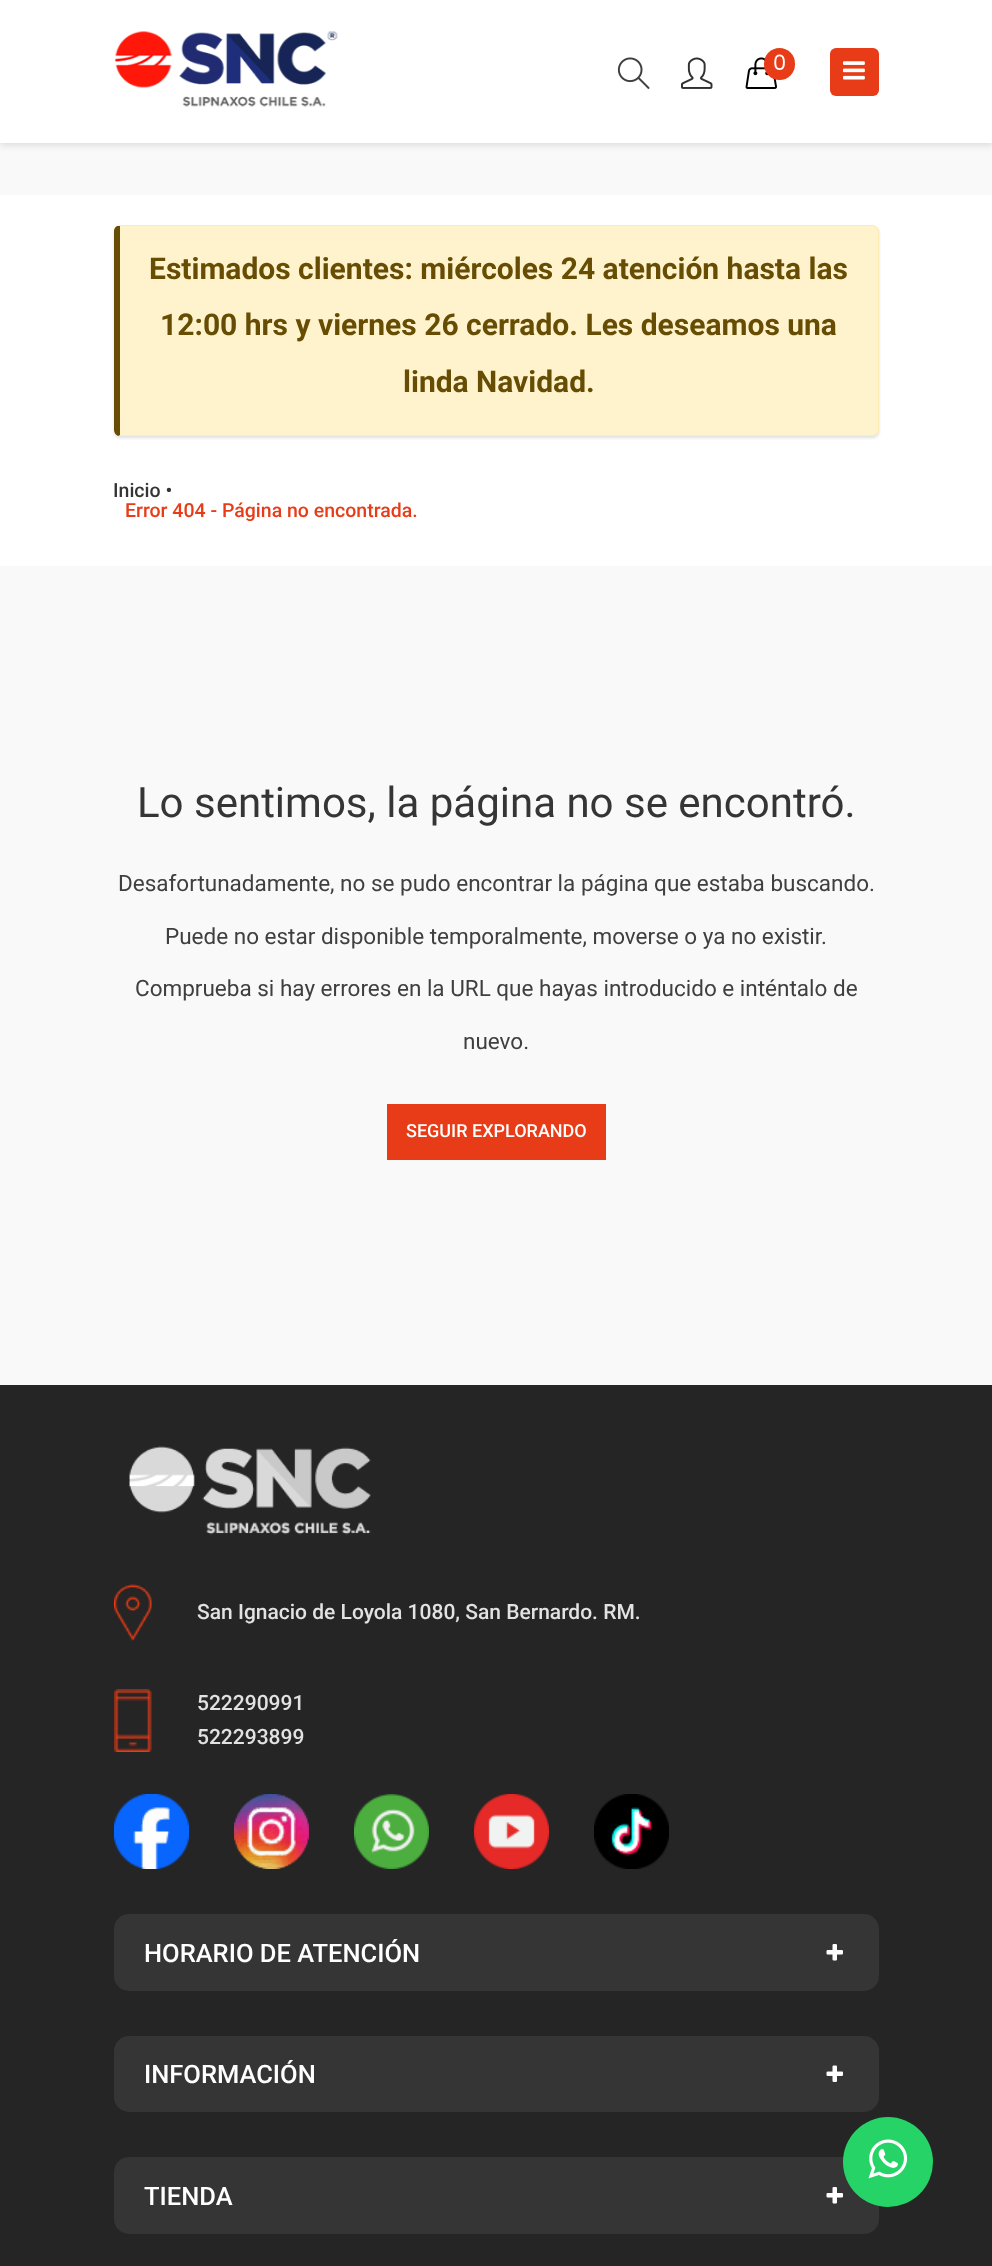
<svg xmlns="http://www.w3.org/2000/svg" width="992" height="2266">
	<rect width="100%" height="100%" fill="#F9F9F9" />
	<rect x="0" y="3" width="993" height="143" fill="#000000" fill-opacity="0.1" filter="blur(3px)" />
	<rect x="0" y="0" width="992" height="143" fill="#FFFFFF" />
	<image x="114" y="31" width="224" height="76" href="assets/img1.png" />
	<image x="617" y="57" width="33" height="32" href="assets/img2.png" />
	<image x="681" y="57" width="32" height="32" href="assets/img3.png" />
	<image x="745" y="57" width="32" height="32" href="assets/img4.png" />
	<rect x="764" y="48" width="31" height="32" rx="15.5" fill="#E73C17" />
	<text x="773" y="70" font-family="Poppins" font-size="21" fill="#FFFFFF">0</text>
	<rect x="830" y="48" width="49" height="48" rx="6" fill="#E73C17" />
	<image x="843" y="61" width="22" height="19" href="assets/img5.png" />
	<rect x="0" y="195" width="992" height="371" fill="#FFFFFF" />
	<rect x="114" y="227" width="765" height="211" rx="6" fill="#000000" fill-opacity="0.12" filter="blur(1.5px)" />
	<path d="M120 226H873C875 226 878 229 878 231V430C878 433 875 435 873 435H120Z" fill="#FFF3CD" />
	<path d="M120 225L117 226H120H873C874 226 875 227 876 228L877 227C876 226 874 225 873 225Z" fill="#FFECB5" />
	<path d="M879 430V230L877 227L876 228L878 231V430C878 431 877 433 876 434L877 435C878 434 879 432 879 430Z" fill="#FFECB5" />
	<path d="M877 435C876 436 874 436 873 436H120H118L120 435H873C874 435 875 435 876 434Z" fill="#FFECB5" />
	<path d="M114 231V430C114 433 116 435 118 436L120 435V226H117C115 227 114 229 114 231Z" fill="#664D03" />
	<g font-family="Roboto" font-size="30" font-weight="700" fill="#664D03">
		<text x="149" y="279">Estimados clientes: miércoles 24 atención hasta las</text>
		<text x="160" y="335">12:00 hrs y viernes 26 cerrado. Les deseamos una</text>
		<text x="403" y="392">linda Navidad.</text>
	</g>
	<text x="113" y="497" font-family="Roboto" font-size="19.5" font-weight="500" fill="#353535">Inicio •</text>
	<text x="125" y="517" font-family="Roboto" font-size="19.5" font-weight="500" fill="#E73C17">Error 404 - Página no encontrada.</text>
	<text x="137" y="817" font-family="Roboto" font-size="42" fill="#353535">Lo sentimos, la página no se encontró.</text>
	<g font-family="Roboto" font-size="22.5" fill="#3F3F3F">
		<text x="118" y="891">Desafortunadamente, no se pudo encontrar la página que estaba buscando.</text>
		<text x="165" y="944">Puede no estar disponible temporalmente, moverse o ya no existir.</text>
		<text x="135" y="996">Comprueba si hay errores en la URL que hayas introducido e inténtalo de</text>
		<text x="463" y="1049">nuevo.</text>
	</g>
	<rect x="387" y="1104" width="219" height="56" fill="#E73C17" />
	<text x="406" y="1137" font-family="Roboto" font-size="18" font-weight="500" fill="#FFFFFF">SEGUIR EXPLORANDO</text>
	<rect x="0" y="1385" width="992" height="881" fill="#252525" />
	<image x="129" y="1446" width="242" height="89" href="assets/img6.png" />
	<image x="114" y="1584" width="38" height="57" href="assets/img7.png" />
	<text x="197" y="1619" font-family="Roboto" font-size="21" font-weight="500" fill="#E2E2E2">San Ignacio de Loyola 1080, San Bernardo. RM.</text>
	<image x="114" y="1689" width="38" height="63" href="assets/img8.png" />
	<g font-family="Roboto" font-size="21" font-weight="500" fill="#E2E2E2">
		<text x="197" y="1710">522290991</text>
		<text x="197" y="1744">522293899</text>
	</g>
	<image x="114" y="1794" width="75" height="75" href="assets/img9.png" />
	<image x="234" y="1794" width="75" height="75" href="assets/img10.png" />
	<image x="354" y="1794" width="75" height="75" href="assets/img11.png" />
	<image x="474" y="1794" width="75" height="75" href="assets/img12.png" />
	<image x="594" y="1794" width="75" height="75" href="assets/img13.png" />
	<rect x="114" y="1914" width="765" height="77" rx="15" fill="#353535" />
	<text x="144" y="1962" font-family="Roboto" font-size="25.5" font-weight="500" fill="#FFFFFF">HORARIO DE ATENCIÓN</text>
	<image x="826" y="1944" width="17" height="17" href="assets/img14.png" />
	<rect x="114" y="2036" width="765" height="76" rx="15" fill="#353535" />
	<text x="144" y="2083" font-family="Roboto" font-size="25.5" font-weight="500" fill="#FFFFFF">INFORMACIÓN</text>
	<image x="826" y="2065" width="17" height="17" href="assets/img15.png" />
	<rect x="114" y="2157" width="765" height="77" rx="15" fill="#353535" />
	<text x="144" y="2205" font-family="Roboto" font-size="25.5" font-weight="500" fill="#FFFFFF">TIENDA</text>
	<image x="826" y="2187" width="17" height="17" href="assets/img14.png" />
	<circle cx="888" cy="2162" r="45" fill="#25D366" />
	<image x="868" y="2139" width="40" height="40" href="assets/img16.png" />
</svg>
